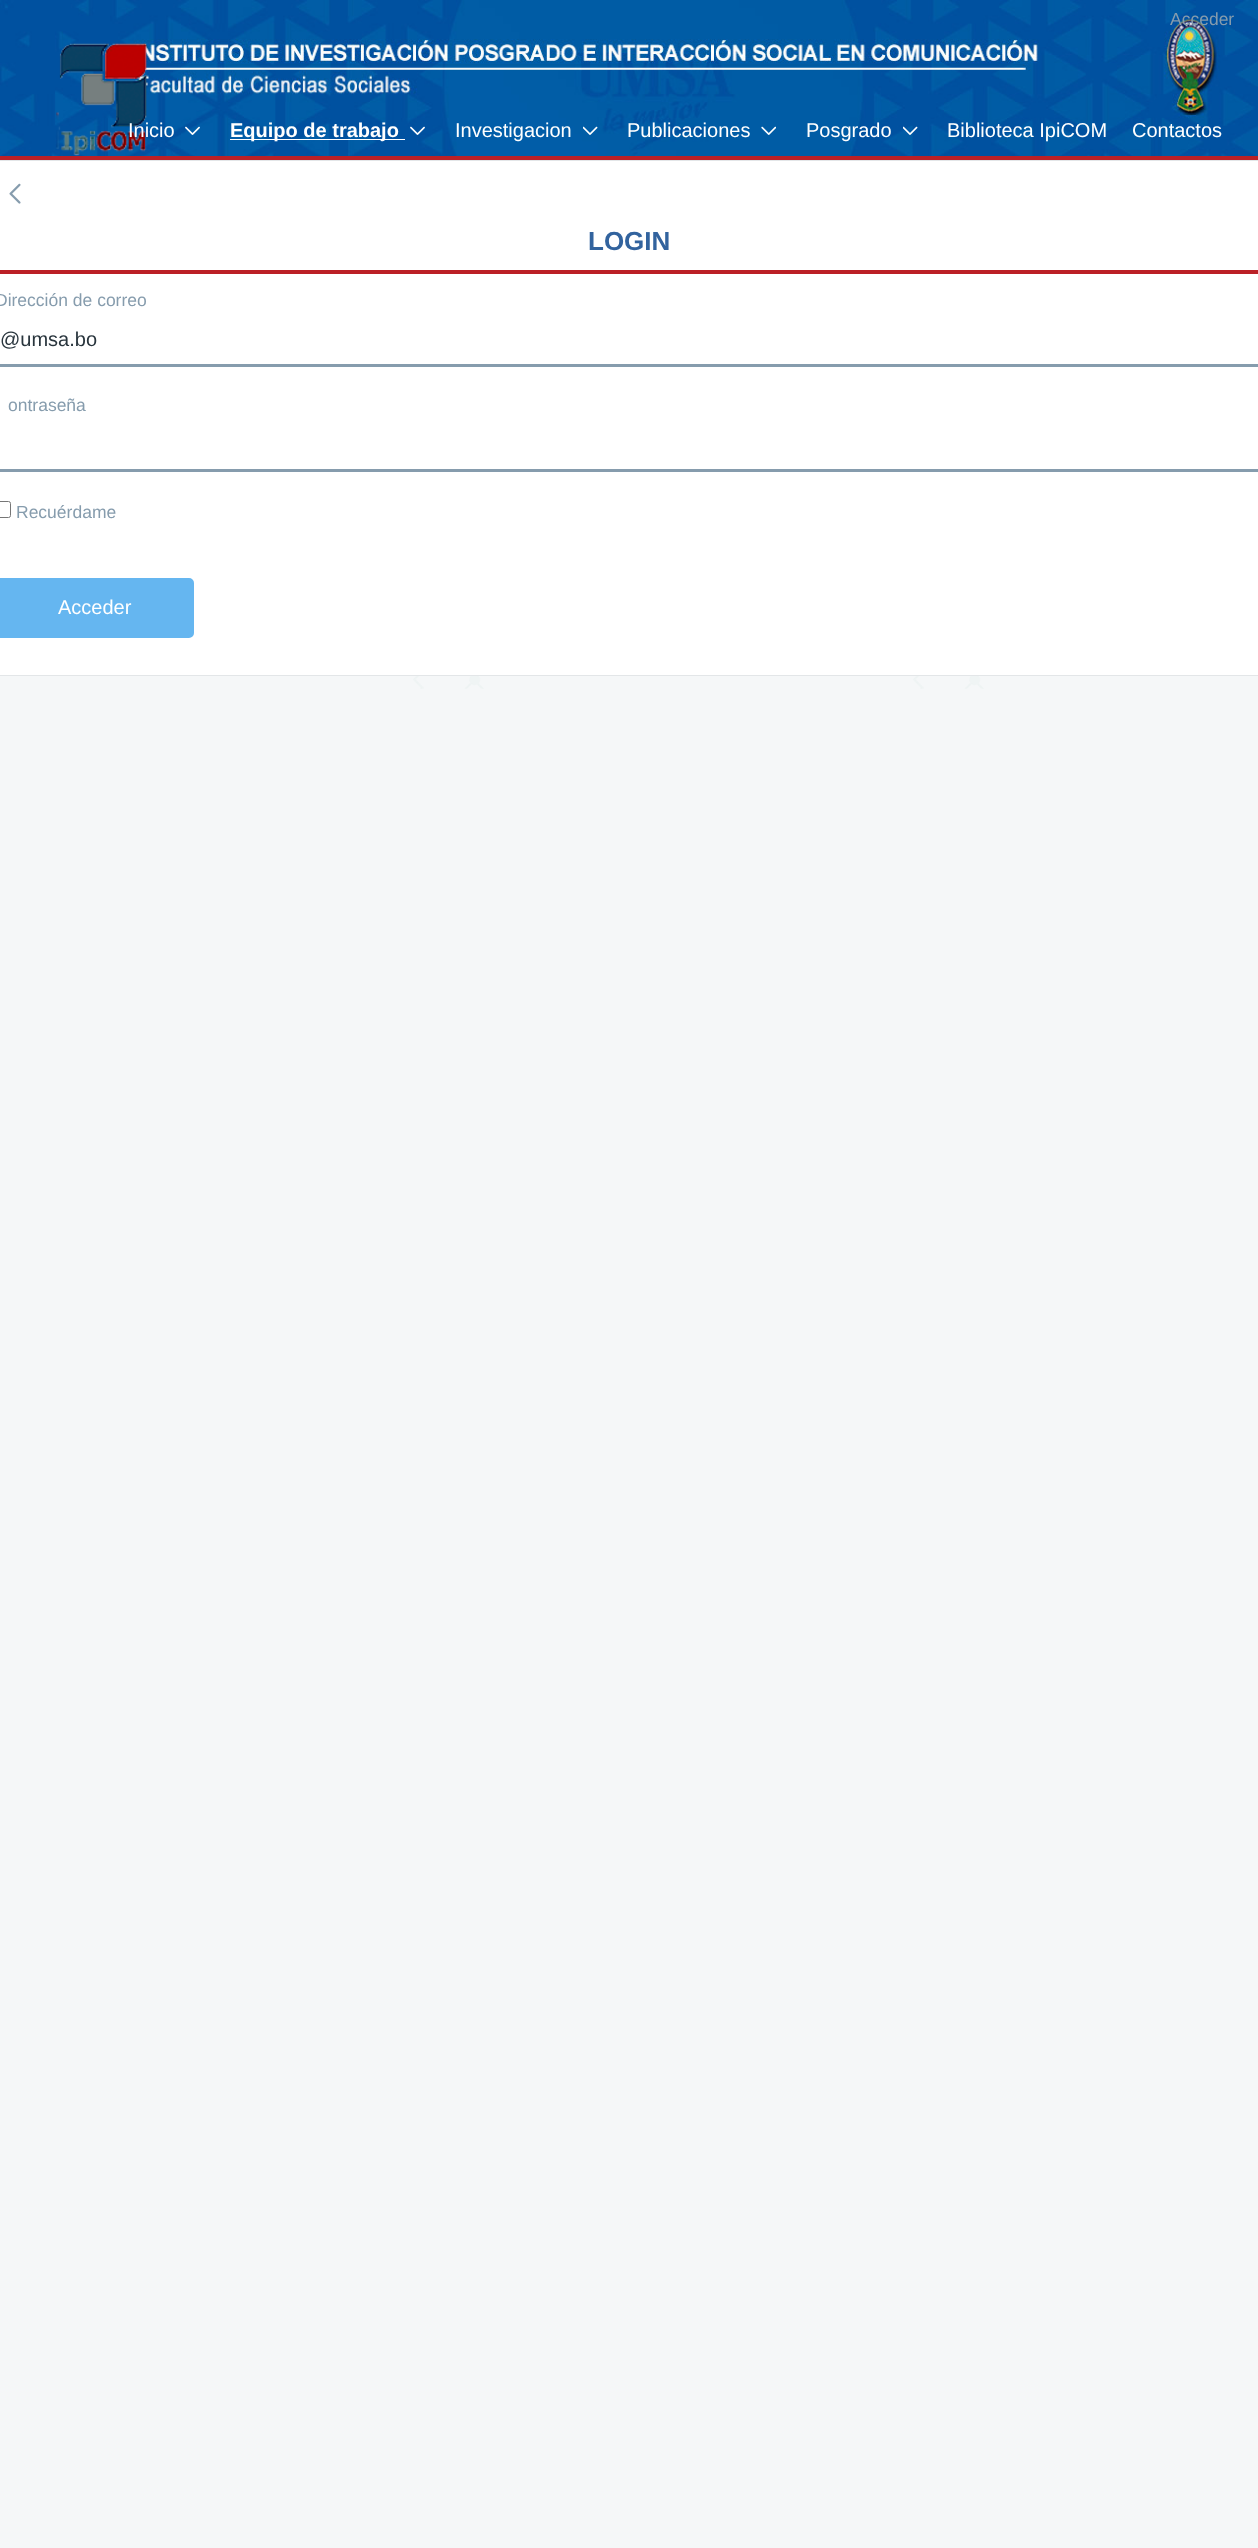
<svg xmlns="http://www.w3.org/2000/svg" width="1258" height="2548">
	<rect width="100%" height="100%" fill="#F5F7F8" />
	<image x="0" y="0" width="1258" height="156" href="assets/img1.png" />
	<rect x="0" y="156" width="1258" height="4" fill="#BB2026" />
	<text x="1170" y="25" font-family="Liberation Sans" font-size="17.5" fill="#869CAD">Acceder</text>
	<image x="56" y="43" width="99" height="113" href="assets/img2.png" />
	<text x="128" y="137" font-family="Liberation Sans" font-size="20" fill="#FFFFFF">Inicio</text>
	<image x="185" y="126" width="15" height="9" href="assets/img3.png" />
	<rect x="230" y="139" width="175" height="1" fill="#FFFFFF" />
	<text x="230" y="137" font-family="Liberation Sans" font-size="20" font-weight="700" fill="#FFFFFF">Equipo de trabajo</text>
	<image x="410" y="126" width="15" height="9" href="assets/img4.png" />
	<text x="455" y="137" font-family="Liberation Sans" font-size="20" fill="#FFFFFF">Investigacion</text>
	<image x="583" y="126" width="15" height="9" href="assets/img5.png" />
	<text x="627" y="137" font-family="Liberation Sans" font-size="20" fill="#FFFFFF">Publicaciones</text>
	<image x="761" y="126" width="15" height="9" href="assets/img6.png" />
	<text x="806" y="137" font-family="Liberation Sans" font-size="20" fill="#FFFFFF">Posgrado</text>
	<image x="903" y="126" width="15" height="9" href="assets/img7.png" />
	<g font-family="Liberation Sans" font-size="20" fill="#FFFFFF">
		<text x="947" y="137">Biblioteca IpiCOM</text>
		<text x="1132" y="137">Contactos</text>
	</g>
	<image x="413" y="676" width="571" height="13" href="assets/img8.png" />
	<rect x="-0.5" y="160.5" width="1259" height="515" fill="#FFFFFF" stroke="#E3E6E8" />
	<image x="9" y="183" width="12" height="21" href="assets/img9.png" />
	<rect x="0" y="270" width="1258" height="4" fill="#BB2026" />
	<text x="588" y="250" font-family="Liberation Sans" font-size="26" font-weight="700" fill="#32639E">LOGIN</text>
	<text x="-5" y="306" font-family="Liberation Sans" font-size="17.5" fill="#869CAD">Dirección de correo</text>
	<rect x="0" y="364" width="1258" height="3" fill="#869CAD" />
	<text x="0" y="346" font-family="Liberation Sans" font-size="20" fill="#29353D">@umsa.bo</text>
	<text x="8" y="411" font-family="Liberation Sans" font-size="17.5" fill="#869CAD">ontraseña</text>
	<rect x="0" y="469" width="1258" height="3" fill="#869CAD" />
	<rect x="-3.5" y="501.5" width="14" height="16" rx="2" fill="none" stroke="#767676" />
	<text x="16" y="518" font-family="Liberation Sans" font-size="17.5" fill="#869CAD">Recuérdame</text>
	<rect x="-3.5" y="579.5" width="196" height="57" rx="3.5" fill="#65B6F0" stroke="#65B6F0" stroke-width="3" />
	<text x="58" y="614" font-family="Liberation Sans" font-size="20" fill="#FFFFFF">Acceder</text>
</svg>
